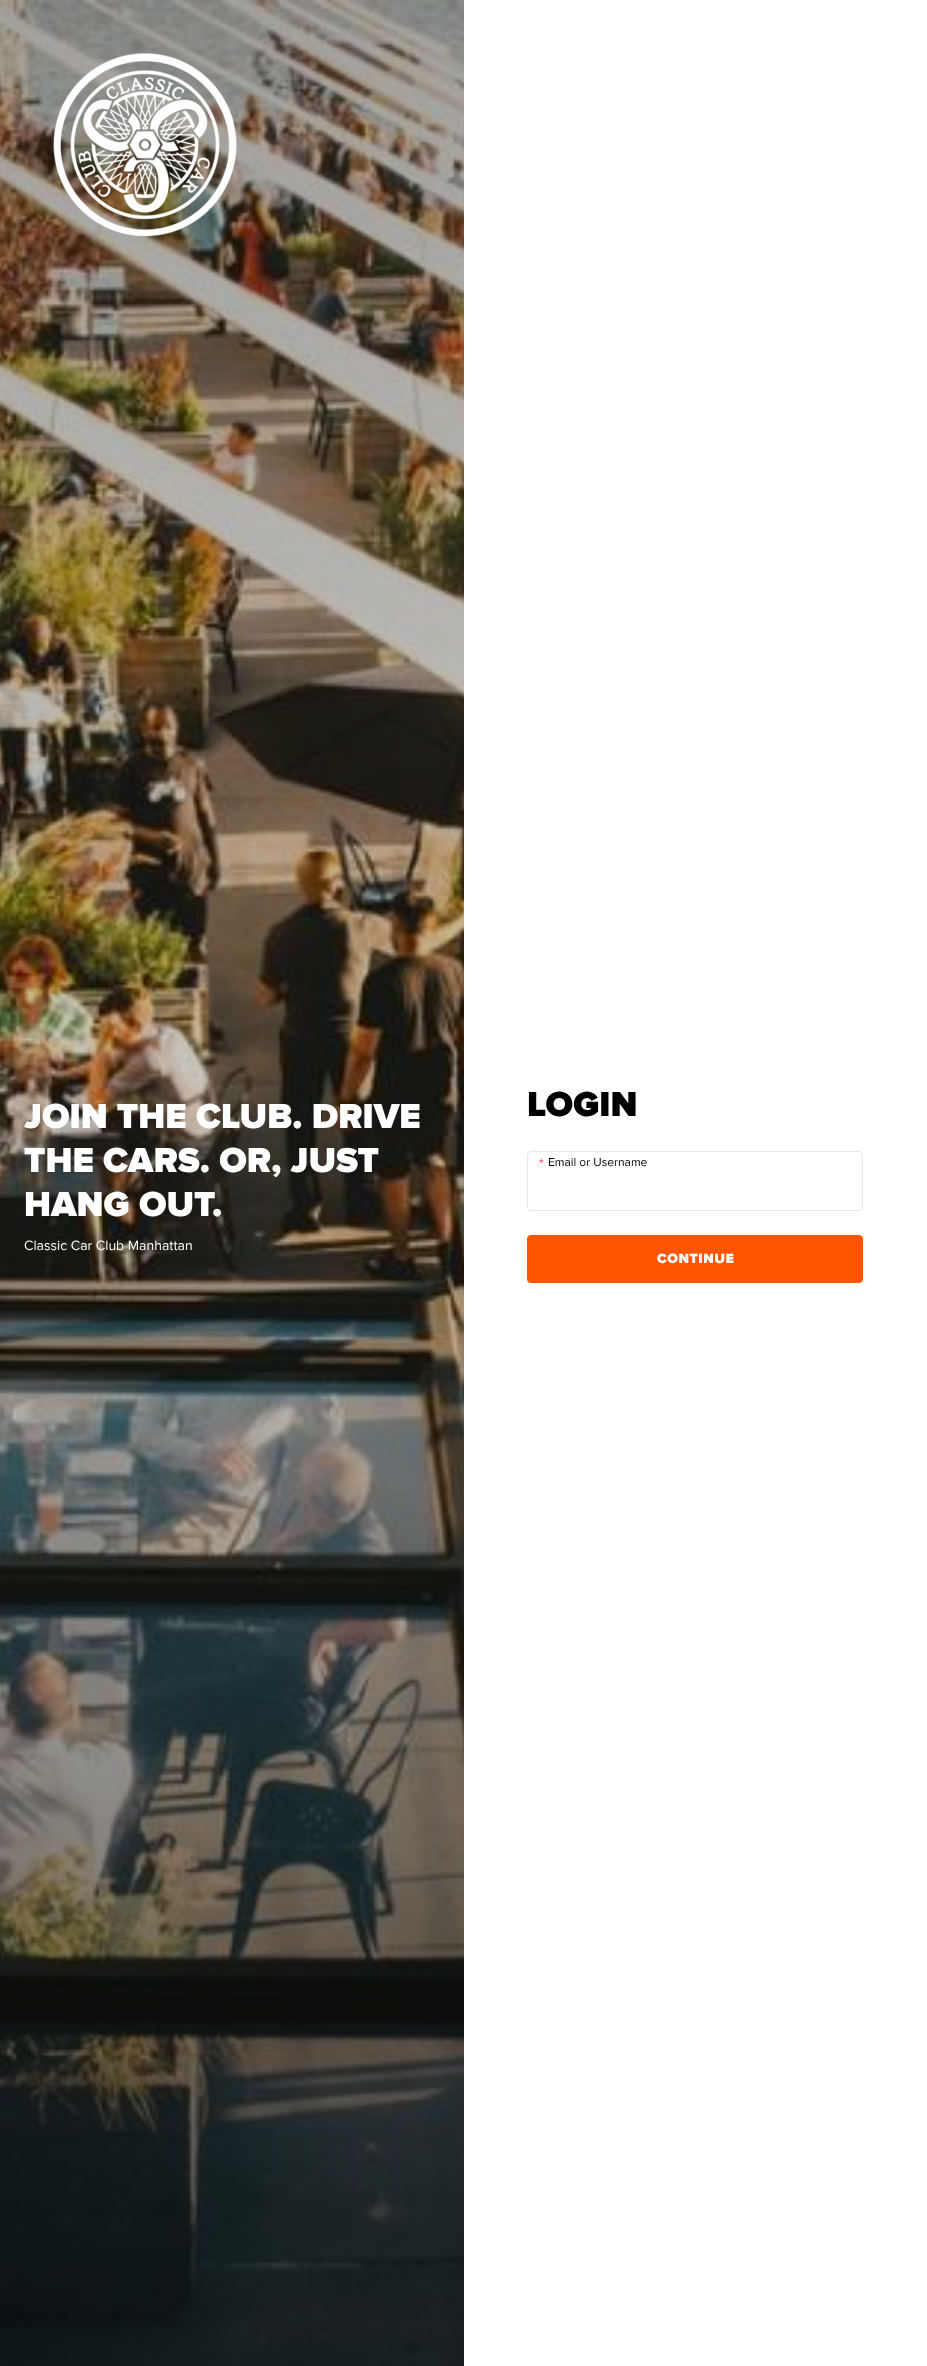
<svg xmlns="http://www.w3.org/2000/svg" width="927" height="2366">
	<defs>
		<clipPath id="clip1"><rect x="527" y="1151" width="336" height="132" /></clipPath>
	</defs>
	<rect width="100%" height="100%" fill="#FFFFFF" />
	<image x="0" y="0" width="464" height="2366" href="assets/img2.png" />
	<image x="53" y="53" width="184" height="184" href="assets/img1.png" />
	<g font-family="Proxima Nova" font-size="36" font-weight="900" fill="#FFFFFF">
		<text x="24" y="1128">JOIN THE CLUB. DRIVE</text>
		<text x="24" y="1172">THE CARS. OR, JUST</text>
		<text x="24" y="1216">HANG OUT.</text>
	</g>
	<text x="24" y="1250" font-family="Proxima Nova" font-size="14" fill="#FFFFFF">Classic Car Club Manhattan</text>
	<text x="527" y="1116" font-family="Proxima Nova" font-size="36" font-weight="900" fill="#000000">LOGIN</text>
	<rect x="527.5" y="1151.5" width="335" height="59" rx="3.5" fill="none" stroke="#E8E7E9" />
	<text x="539" y="1167" font-family="Liberation Sans" font-size="12" fill="#FF4D4F">*</text>
	<text x="548" y="1166" font-family="Proxima Nova" font-size="12" fill="#000000">Email or Username</text>
	<g clip-path="url(#clip1)">
		<path d="M527 1279C527 1282 527 1285 531 1285H859C863 1285 863 1282 863 1279C863 1281 861 1283 859 1283H531C529 1283 527 1281 527 1279Z" fill="#F4F4F4" />
	</g>
	<rect x="527.5" y="1235.5" width="335" height="47" rx="3.5" fill="#FF5500" stroke="#FF5500" />
	<text x="657" y="1263" font-family="Proxima Nova" font-size="14" font-weight="900" letter-spacing="0.5" fill="#FFFFFF">CONTINUE</text>
</svg>
